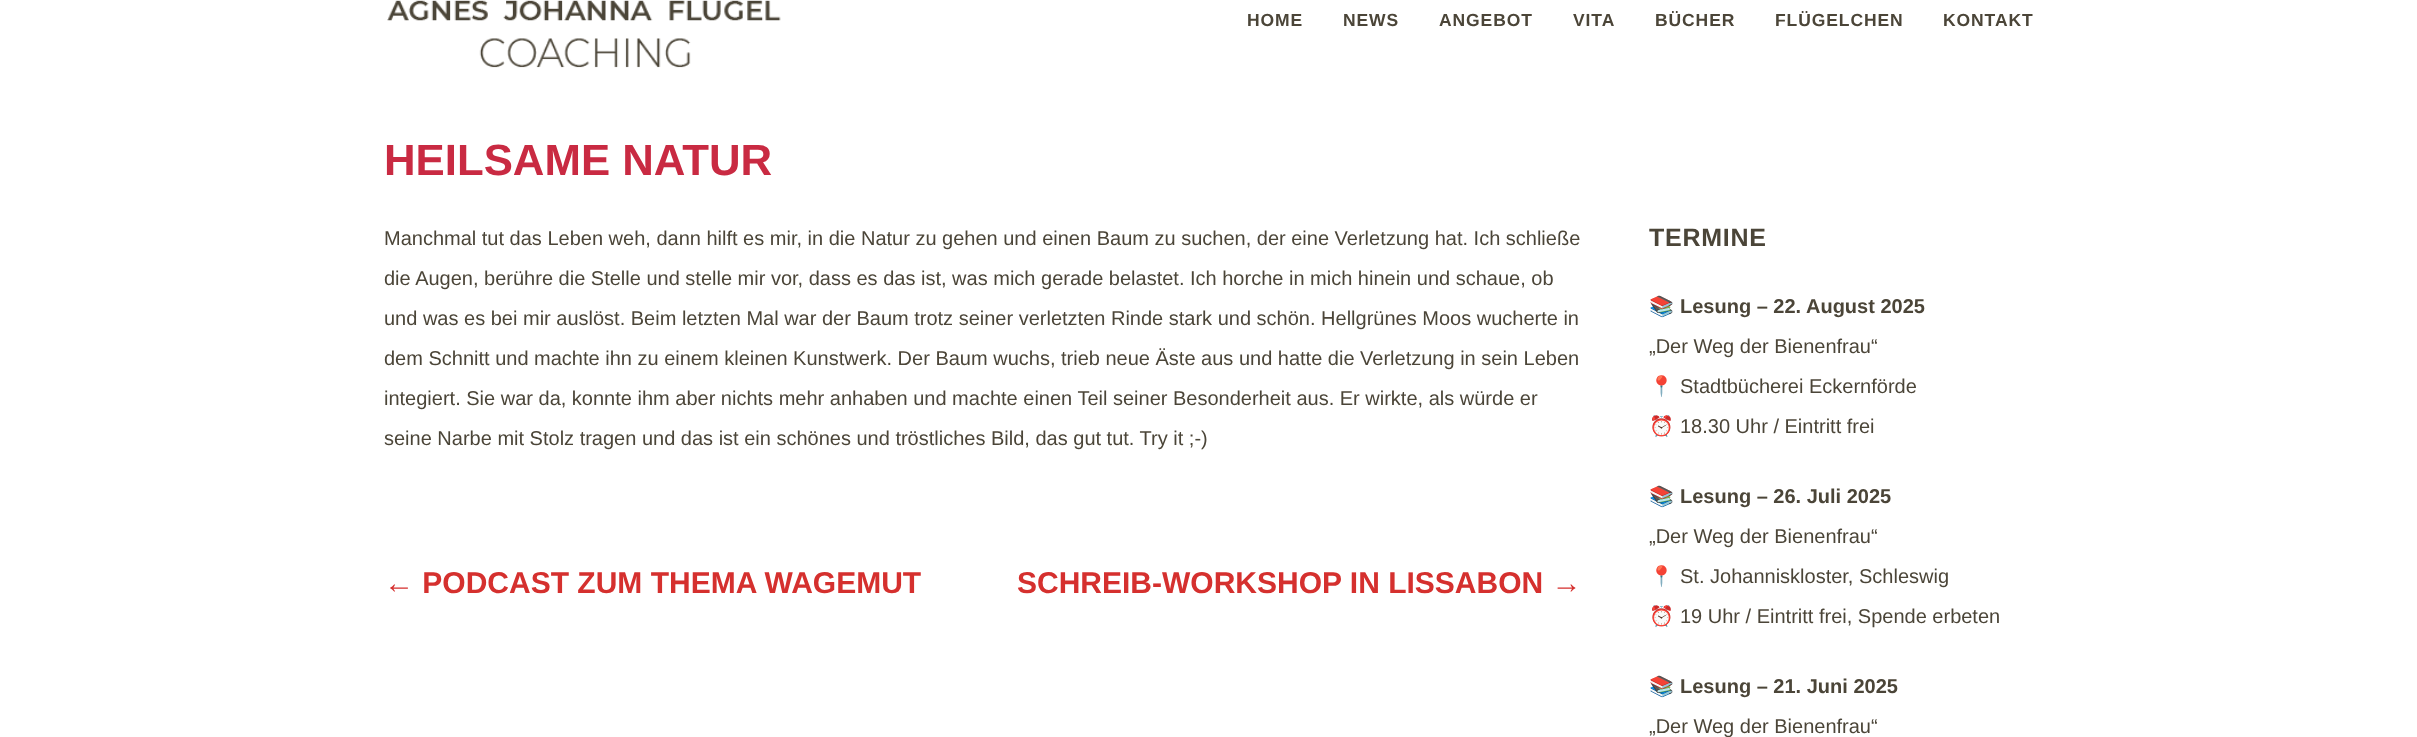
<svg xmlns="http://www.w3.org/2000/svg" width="2417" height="737">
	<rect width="100%" height="100%" fill="#FFFFFF" />
	<image x="387" y="0" width="394" height="68" href="assets/img1.png" />
	<g font-family="Liberation Sans" font-size="17.5" font-weight="700" letter-spacing="0.9" fill="#4B4538">
		<text x="1247" y="26">HOME</text>
		<text x="1343" y="26">NEWS</text>
		<text x="1439" y="26">ANGEBOT</text>
		<text x="1573" y="26">VITA</text>
		<text x="1655" y="26">BÜCHER</text>
		<text x="1775" y="26">FLÜGELCHEN</text>
		<text x="1943" y="26">KONTAKT</text>
	</g>
	<text x="384" y="175" font-family="Liberation Sans" font-size="43.75" font-weight="700" fill="#C92A42">HEILSAME NATUR</text>
	<g font-family="Liberation Sans" font-size="20" fill="#4B4538">
		<text x="384" y="245">Manchmal tut das Leben weh, dann hilft es mir, in die Natur zu gehen und einen Baum zu suchen, der eine Verletzung hat. Ich schließe</text>
		<text x="384" y="285">die Augen, berühre die Stelle und stelle mir vor, dass es das ist, was mich gerade belastet. Ich horche in mich hinein und schaue, ob</text>
		<text x="384" y="325">und was es bei mir auslöst. Beim letzten Mal war der Baum trotz seiner verletzten Rinde stark und schön. Hellgrünes Moos wucherte in</text>
		<text x="384" y="365">dem Schnitt und machte ihn zu einem kleinen Kunstwerk. Der Baum wuchs, trieb neue Äste aus und hatte die Verletzung in sein Leben</text>
		<text x="384" y="405">integiert. Sie war da, konnte ihm aber nichts mehr anhaben und machte einen Teil seiner Besonderheit aus. Er wirkte, als würde er</text>
		<text x="384" y="445">seine Narbe mit Stolz tragen und das ist ein schönes und tröstliches Bild, das gut tut. Try it ;-)</text>
	</g>
	<g font-family="Liberation Sans" font-size="30" font-weight="700" fill="#D5302E">
		<text x="384" y="593">← PODCAST ZUM THEMA WAGEMUT</text>
		<text x="1017" y="593">SCHREIB-WORKSHOP IN LISSABON →</text>
	</g>
	<text x="1649" y="246" font-family="Liberation Sans" font-size="25" font-weight="700" letter-spacing="0.75" fill="#4B4538">TERMINE</text>
	<text x="1649" y="313" font-family="Noto Color Emoji" font-size="20" font-weight="700" fill="#4B4538">📚</text>
	<text x="1680" y="313" font-family="Liberation Sans" font-size="20" font-weight="700" fill="#4B4538">Lesung – 22. August 2025</text>
	<text x="1649" y="353" font-family="Liberation Sans" font-size="20" fill="#4B4538">„Der Weg der Bienenfrau“</text>
	<text x="1649" y="393" font-family="Noto Color Emoji" font-size="20" fill="#4B4538">📍</text>
	<text x="1680" y="393" font-family="Liberation Sans" font-size="20" fill="#4B4538">Stadtbücherei Eckernförde</text>
	<text x="1649" y="433" font-family="Noto Color Emoji" font-size="20" fill="#4B4538">⏰</text>
	<text x="1680" y="433" font-family="Liberation Sans" font-size="20" fill="#4B4538">18.30 Uhr / Eintritt frei</text>
	<text x="1649" y="503" font-family="Noto Color Emoji" font-size="20" font-weight="700" fill="#4B4538">📚</text>
	<text x="1680" y="503" font-family="Liberation Sans" font-size="20" font-weight="700" fill="#4B4538">Lesung – 26. Juli 2025</text>
	<text x="1649" y="543" font-family="Liberation Sans" font-size="20" fill="#4B4538">„Der Weg der Bienenfrau“</text>
	<text x="1649" y="583" font-family="Noto Color Emoji" font-size="20" fill="#4B4538">📍</text>
	<text x="1680" y="583" font-family="Liberation Sans" font-size="20" fill="#4B4538">St. Johanniskloster, Schleswig</text>
	<text x="1649" y="623" font-family="Noto Color Emoji" font-size="20" fill="#4B4538">⏰</text>
	<text x="1680" y="623" font-family="Liberation Sans" font-size="20" fill="#4B4538">19 Uhr / Eintritt frei, Spende erbeten</text>
	<text x="1649" y="693" font-family="Noto Color Emoji" font-size="20" font-weight="700" fill="#4B4538">📚</text>
	<text x="1680" y="693" font-family="Liberation Sans" font-size="20" font-weight="700" fill="#4B4538">Lesung – 21. Juni 2025</text>
	<text x="1649" y="733" font-family="Liberation Sans" font-size="20" fill="#4B4538">„Der Weg der Bienenfrau“</text>
</svg>
